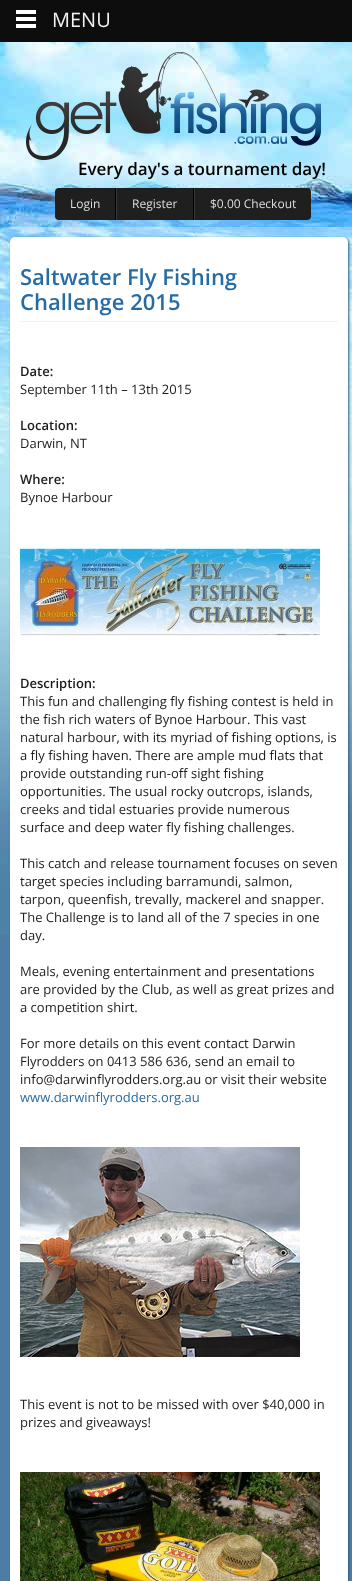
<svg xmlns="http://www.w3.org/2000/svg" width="352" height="1581">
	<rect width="100%" height="100%" fill="#00467F" />
	<image x="0" y="42" width="352" height="893" href="assets/img1.png" />
	<rect x="0" y="0" width="352" height="42" fill="#0D0D0D" />
	<rect x="16" y="10" width="20" height="4" fill="#FFFFFF" />
	<rect x="16" y="17" width="20" height="4" fill="#FFFFFF" />
	<rect x="16" y="24" width="20" height="4" fill="#FFFFFF" />
	<text x="52" y="27" font-family="Open Sans" font-size="20" fill="#F2F2F2">MENU</text>
	<image x="26" y="52" width="295" height="108" href="assets/img2.png" />
	<text x="78" y="175" font-family="Open Sans" font-size="17" font-weight="600" fill="#000000">Every day's a tournament day!</text>
	<rect x="55" y="188" width="256" height="32" rx="4" fill="#1F1F1F" />
	<rect x="115" y="188" width="1" height="32" fill="#000000" />
	<text x="70" y="208" font-family="Open Sans" font-size="12" fill="#DEDEDE">Login</text>
	<rect x="193" y="188" width="1" height="32" fill="#000000" />
	<rect x="116" y="188" width="1" height="32" fill="#383838" />
	<text x="132" y="208" font-family="Open Sans" font-size="12" fill="#DEDEDE">Register</text>
	<rect x="194" y="188" width="1" height="32" fill="#383838" />
	<text x="210" y="208" font-family="Open Sans" font-size="12" fill="#DEDEDE">$0.00 Checkout</text>
	<image x="0" y="227" width="352" height="1354" href="assets/img3.png" />
	<rect x="11" y="238" width="338" height="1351" rx="5" fill="#325B7C" filter="blur(1px)" />
	<rect x="10" y="237" width="338" height="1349" rx="5" fill="#FFFFFF" />
	<rect x="20" y="321" width="318" height="1" fill="#F2F2F2" />
	<g font-family="'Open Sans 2'" font-size="22" font-weight="600" fill="#266CA4">
		<text x="20" y="285">Saltwater Fly Fishing</text>
		<text x="20" y="310">Challenge 2015</text>
	</g>
	<text x="20" y="376" font-family="Open Sans" font-size="13" font-weight="600" fill="#1C1C1C">Date:</text>
	<text x="20" y="394" font-family="Open Sans" font-size="13" fill="#1C1C1C">September 11th – 13th 2015</text>
	<text x="20" y="430" font-family="Open Sans" font-size="13" font-weight="600" fill="#1C1C1C">Location:</text>
	<text x="20" y="448" font-family="Open Sans" font-size="13" fill="#1C1C1C">Darwin, NT</text>
	<text x="20" y="484" font-family="Open Sans" font-size="13" font-weight="600" fill="#1C1C1C">Where:</text>
	<text x="20" y="502" font-family="Open Sans" font-size="13" fill="#1C1C1C">Bynoe Harbour</text>
	<image x="20" y="547" width="300" height="89" href="assets/img4.png" />
	<text x="20" y="688" font-family="Open Sans" font-size="13" font-weight="600" fill="#1C1C1C">Description:</text>
	<g font-family="Open Sans" font-size="13" fill="#1C1C1C">
		<text x="20" y="706">This fun and challenging fly fishing contest is held in</text>
		<text x="20" y="724">the fish rich waters of Bynoe Harbour. This vast</text>
		<text x="20" y="742">natural harbour, with its myriad of fishing options, is</text>
		<text x="20" y="760">a fly fishing haven. There are ample mud flats that</text>
		<text x="20" y="778">provide outstanding run-off sight fishing</text>
		<text x="20" y="796">opportunities. The usual rocky outcrops, islands,</text>
		<text x="20" y="814">creeks and tidal estuaries provide numerous</text>
		<text x="20" y="832">surface and deep water fly fishing challenges.</text>
		<text x="20" y="868">This catch and release tournament focuses on seven</text>
		<text x="20" y="886">target species including barramundi, salmon,</text>
		<text x="20" y="904">tarpon, queenfish, trevally, mackerel and snapper.</text>
		<text x="20" y="922">The Challenge is to land all of the 7 species in one</text>
		<text x="20" y="940">day.</text>
		<text x="20" y="976">Meals, evening entertainment and presentations</text>
		<text x="20" y="994">are provided by the Club, as well as great prizes and</text>
		<text x="20" y="1012">a competition shirt.</text>
		<text x="20" y="1048">For more details on this event contact Darwin</text>
		<text x="20" y="1066">Flyrodders on 0413 586 636, send an email to</text>
		<text x="20" y="1084">info@darwinflyrodders.org.au or visit their website</text>
	</g>
	<text x="20" y="1102" font-family="Open Sans" font-size="13" fill="#266CA4">www.darwinflyrodders.org.au</text>
	<image x="20" y="1147" width="280" height="210" href="assets/img5.png" />
	<g font-family="Open Sans" font-size="13" fill="#1C1C1C">
		<text x="20" y="1409">This event is not to be missed with over $40,000 in</text>
		<text x="20" y="1427">prizes and giveaways!</text>
	</g>
	<image x="20" y="1472" width="300" height="109" href="assets/img6.png" />
</svg>
